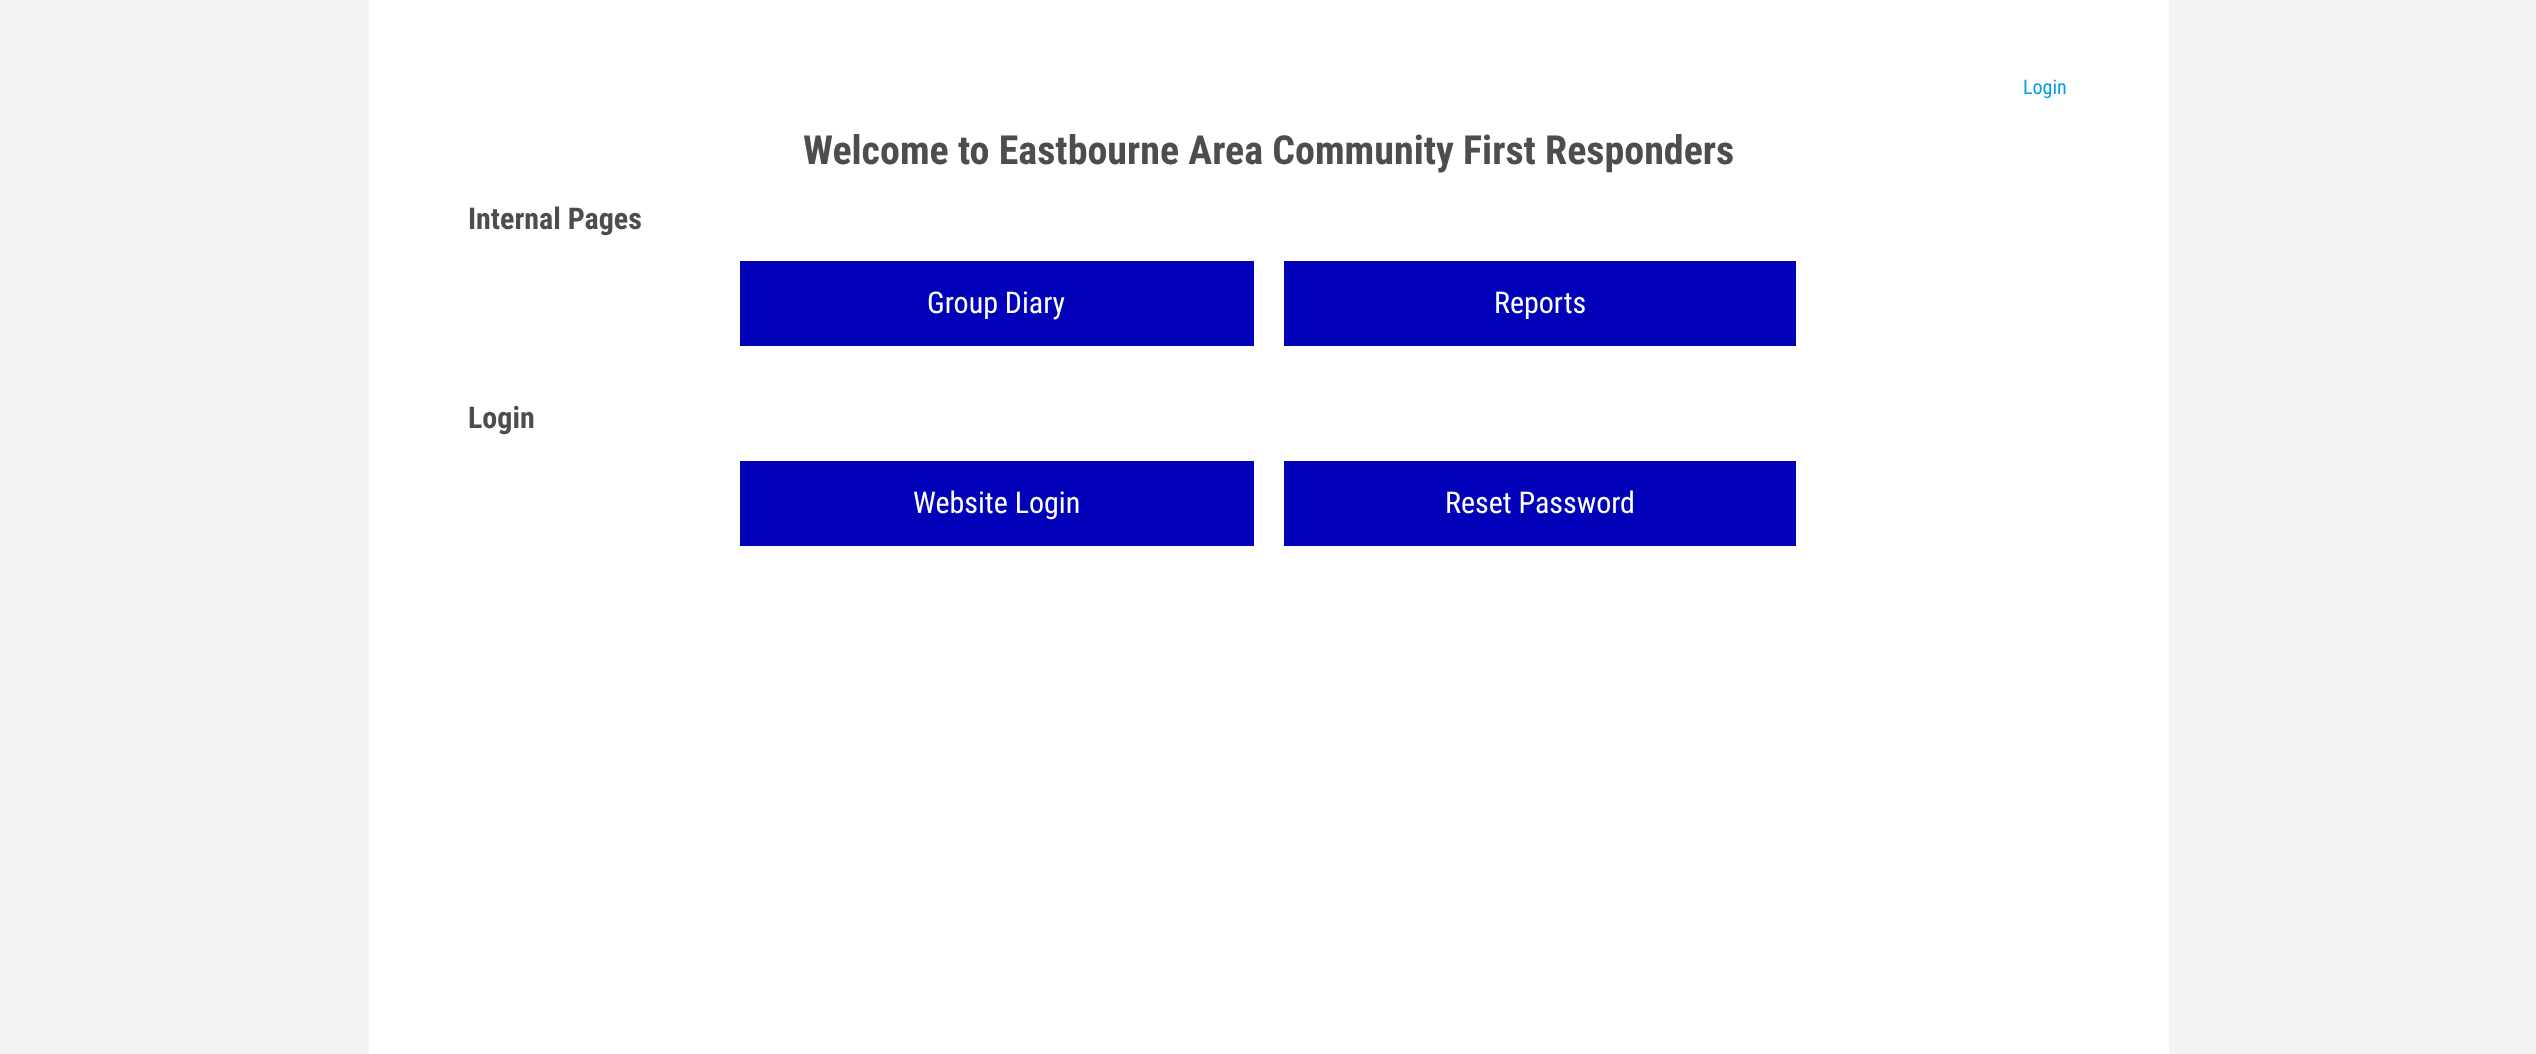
<svg xmlns="http://www.w3.org/2000/svg" width="2536" height="1054">
	<rect width="100%" height="100%" fill="#F3F3F3" />
	<rect x="369" y="0" width="1800" height="1054" fill="#FFFFFF" />
	<text x="2023" y="94" font-family="Roboto Condensed" font-size="20" fill="#039BE5">Login</text>
	<text x="803" y="164" font-family="Roboto Condensed" font-size="40" font-weight="700" fill="#4D4D4D">Welcome to Eastbourne Area Community First Responders</text>
	<text x="468" y="229" font-family="Roboto Condensed" font-size="30" font-weight="700" fill="#4D4D4D">Internal Pages</text>
	<rect x="740" y="261" width="514" height="85" fill="#0101BA" />
	<text x="927" y="313" font-family="Roboto Condensed" font-size="30" fill="#FFFFFF">Group Diary</text>
	<rect x="1284" y="261" width="512" height="85" fill="#0101BA" />
	<text x="1494" y="313" font-family="Roboto Condensed" font-size="30" fill="#FFFFFF">Reports</text>
	<text x="468" y="428" font-family="Roboto Condensed" font-size="30" font-weight="700" fill="#4D4D4D">Login</text>
	<rect x="740" y="461" width="514" height="85" fill="#0101BA" />
	<text x="913" y="513" font-family="Roboto Condensed" font-size="30" fill="#FFFFFF">Website Login</text>
	<rect x="1284" y="461" width="512" height="85" fill="#0101BA" />
	<text x="1445" y="513" font-family="Roboto Condensed" font-size="30" fill="#FFFFFF">Reset Password</text>
</svg>
